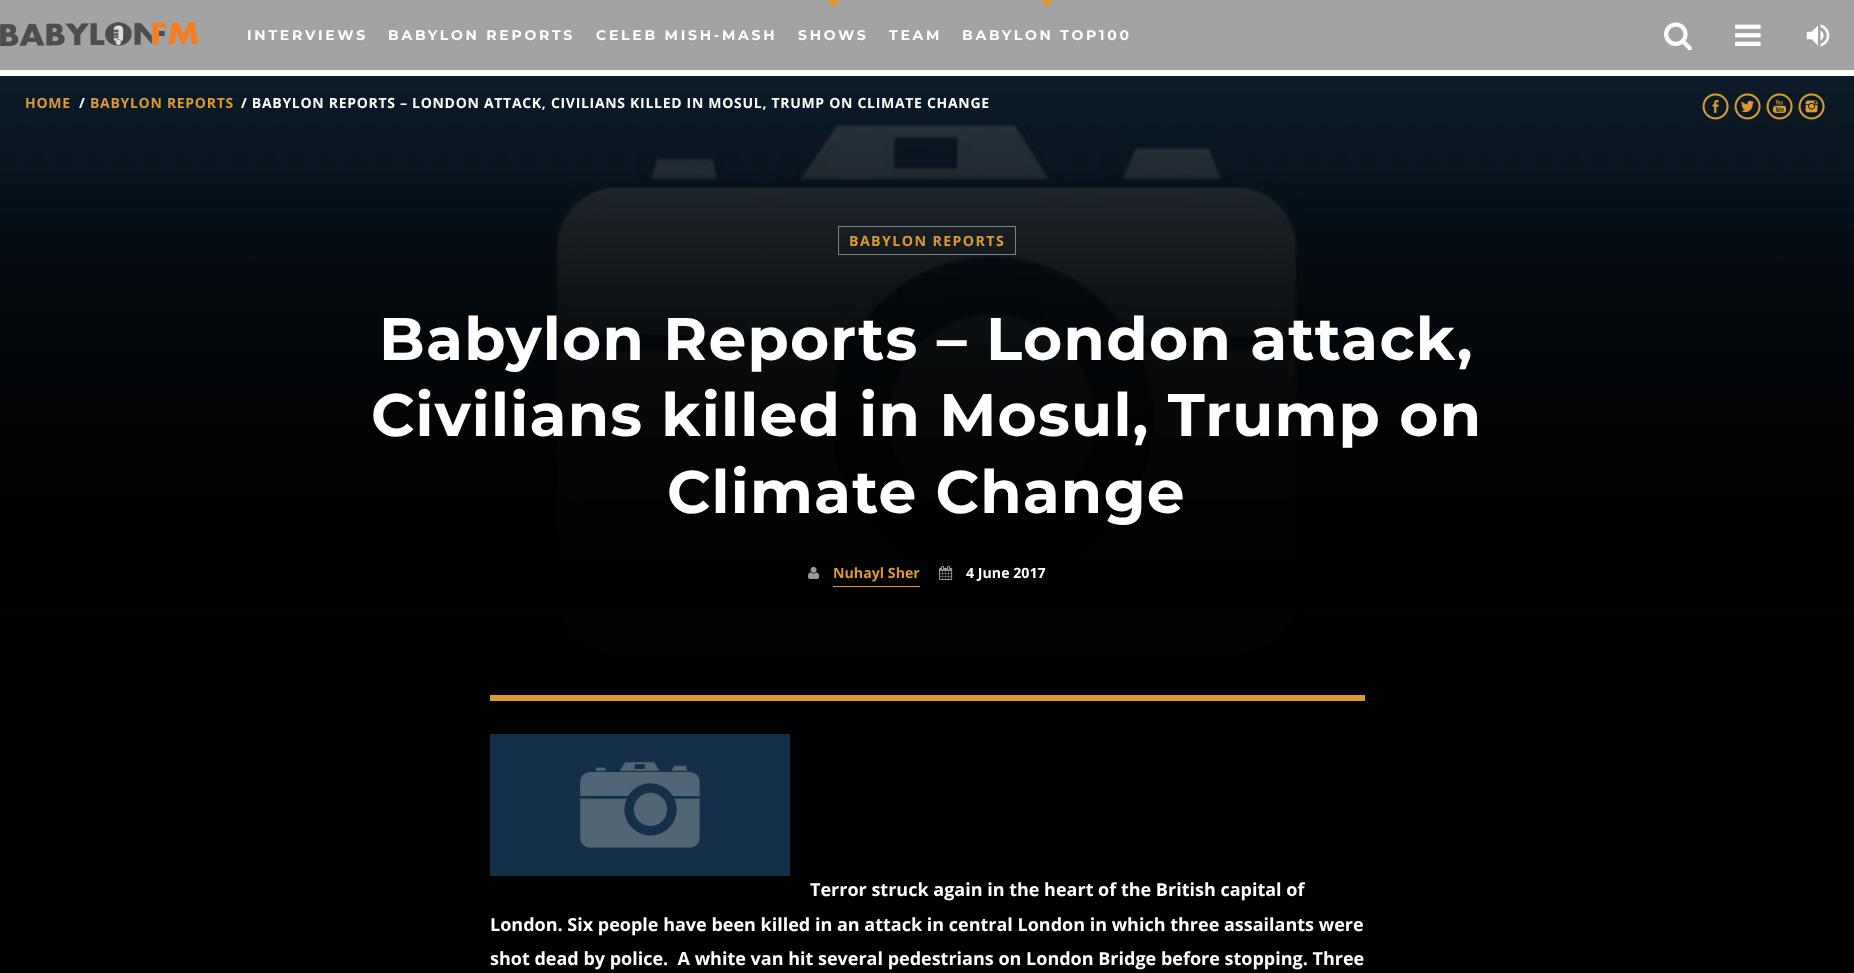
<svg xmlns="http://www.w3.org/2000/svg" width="1854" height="973">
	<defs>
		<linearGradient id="g1" gradientUnits="userSpaceOnUse" x1="927" y1="-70" x2="927" y2="706"><stop offset="0" stop-color="#000000" stop-opacity="0" /><stop offset="1" stop-color="#000000" stop-opacity="0.83" /></linearGradient>
		<linearGradient id="g2" gradientUnits="userSpaceOnUse" x1="927" y1="-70" x2="927" y2="730"><stop offset="0" stop-color="#000000" stop-opacity="0" /><stop offset="1" stop-color="#000000" /></linearGradient>
		<linearGradient id="g3" gradientUnits="userSpaceOnUse" x1="927" y1="147" x2="927" y2="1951"><stop offset="0" stop-color="#000000" stop-opacity="0" /><stop offset="1" stop-color="#000000" /></linearGradient>
		<linearGradient id="g4" gradientUnits="userSpaceOnUse" x1="927" y1="147" x2="927" y2="696"><stop offset="0" stop-color="#000000" stop-opacity="0" /><stop offset="1" stop-color="#000000" /></linearGradient>
	</defs>
	<rect width="100%" height="100%" fill="#000000" />
	<rect x="0" y="0" width="1854" height="70" fill="#A3A3A3" />
	<image x="0" y="22" width="198" height="24" href="assets/img1.png" />
	<g font-family="Montserrat" font-size="14" font-weight="700" letter-spacing="2.75" fill="#FFFFFF">
		<text x="247" y="40">INTERVIEWS</text>
		<text x="388" y="40">BABYLON REPORTS</text>
		<text x="596" y="40">CELEB MISH-MASH</text>
	</g>
	<path d="M827 0H839L833 8Z" fill="#DD9933" />
	<g font-family="Montserrat" font-size="14" font-weight="700" letter-spacing="2.75" fill="#FFFFFF">
		<text x="798" y="40">SHOWS</text>
		<text x="889" y="40">TEAM</text>
	</g>
	<path d="M1041 0H1053L1047 8Z" fill="#DD9933" />
	<text x="962" y="40" font-family="Montserrat" font-size="14" font-weight="700" letter-spacing="2.75" fill="#FFFFFF">BABYLON TOP100</text>
	<image x="1664" y="22" width="28" height="29" href="assets/img2.png" />
	<image x="1735" y="24" width="26" height="22" href="assets/img3.png" />
	<image x="1806" y="24" width="24" height="23" href="assets/img4.png" />
	<rect x="0" y="70" width="1854" height="6" fill="#FFFFFF" />
	<image x="0" y="76" width="1854" height="630" href="assets/img9.png" />
	<rect x="0" y="76" width="1854" height="630" fill="url(#g1)" />
	<rect x="0" y="76" width="1854" height="630" fill="url(#g2)" />
	<text x="25" y="108" font-family="Open Sans" font-size="14" font-weight="700" letter-spacing="0.7" fill="#DD9933">HOME</text>
	<text x="79" y="108" font-family="Open Sans" font-size="14" font-weight="700" letter-spacing="0.7" fill="#FFFFFF">/</text>
	<text x="90" y="108" font-family="Open Sans" font-size="14" font-weight="700" letter-spacing="0.7" fill="#DD9933">BABYLON REPORTS</text>
	<text x="241" y="108" font-family="Open Sans" font-size="14" font-weight="700" letter-spacing="0.7" fill="#FFFFFF">/ BABYLON REPORTS – LONDON ATTACK, CIVILIANS KILLED IN MOSUL, TRUMP ON CLIMATE CHANGE</text>
	<image x="1702" y="93" width="27" height="27" href="assets/img5.png" />
	<image x="1734" y="93" width="27" height="27" href="assets/img6.png" />
	<image x="1766" y="93" width="27" height="27" href="assets/img7.png" />
	<image x="1798" y="93" width="27" height="27" href="assets/img8.png" />
	<rect x="558" y="278" width="738" height="185" fill="url(#g3)" />
	<rect x="0" y="174" width="1854" height="435" fill="url(#g4)" />
	<rect x="838.5" y="226.5" width="177" height="28" fill="none" stroke="#808080" />
	<text x="849" y="246" font-family="Open Sans" font-size="14.2" font-weight="700" letter-spacing="1.4" fill="#DD9933">BABYLON REPORTS</text>
	<g font-family="Montserrat" font-size="59.9" font-weight="700" letter-spacing="1.2" fill="#FFFFFF">
		<text x="379" y="360">Babylon Reports – London attack,</text>
		<text x="371" y="436">Civilians killed in Mosul, Trump on</text>
		<text x="667" y="513">Climate Change</text>
	</g>
	<image x="808" y="566" width="12" height="13" href="assets/img10.png" />
	<text x="833" y="578" font-family="Open Sans" font-size="14.2" font-weight="700" fill="#DD9933">Nuhayl Sher</text>
	<rect x="833" y="586" width="87" height="1" fill="#DD9933" />
	<image x="939" y="565" width="14" height="15" href="assets/img11.png" />
	<text x="966" y="578" font-family="Open Sans" font-size="14.2" font-weight="700" fill="#FFFFFF">4 June 2017</text>
	<rect x="490" y="695" width="875" height="6" fill="#DD9933" />
	<image x="490" y="734" width="300" height="142" href="assets/img12.png" />
	<g font-family="Open Sans" font-size="18" font-weight="700" fill="#FFFFFF">
		<text x="810" y="896">Terror struck again in the heart of the British capital of</text>
		<text x="490" y="931">London. Six people have been killed in an attack in central London in which three assailants were</text>
		<text x="490" y="965" xml:space="preserve">shot dead by police.  A white van hit several pedestrians on London Bridge before stopping. Three</text>
	</g>
</svg>
